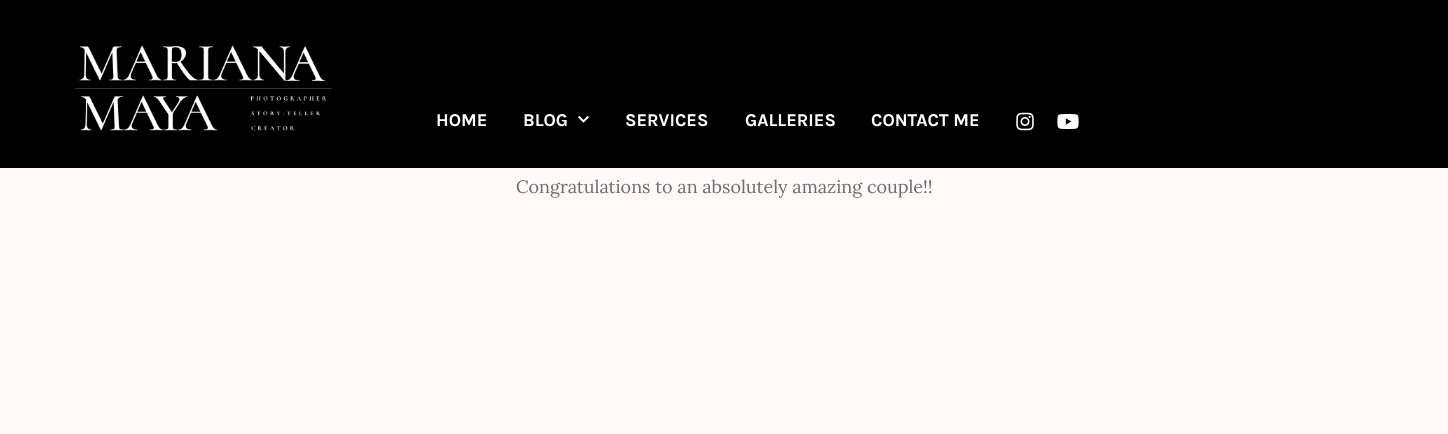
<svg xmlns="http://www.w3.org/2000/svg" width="1448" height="434">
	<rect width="100%" height="100%" fill="#000000" />
	<image x="74" y="45" width="259" height="86" href="assets/img1.png" />
	<g font-family="Karla" font-size="18" font-weight="700" fill="#FFFFFF">
		<text x="436" y="126">HOME</text>
		<text x="523" y="126">BLOG</text>
	</g>
	<image x="578" y="116" width="11" height="7" href="assets/img2.png" />
	<g font-family="Karla" font-size="18" font-weight="700" fill="#FFFFFF">
		<text x="625" y="126">SERVICES</text>
		<text x="745" y="126">GALLERIES</text>
		<text x="871" y="126">CONTACT ME</text>
	</g>
	<image x="1016" y="112" width="18" height="19" href="assets/img3.png" />
	<image x="1057" y="114" width="22" height="15" href="assets/img4.png" />
	<rect x="0" y="168" width="1448" height="266" fill="#FFF9F9" />
	<text x="516" y="193" font-family="Lora" font-size="18" fill="#6E6E6E">Congratulations to an absolutely amazing couple!!</text>
</svg>
